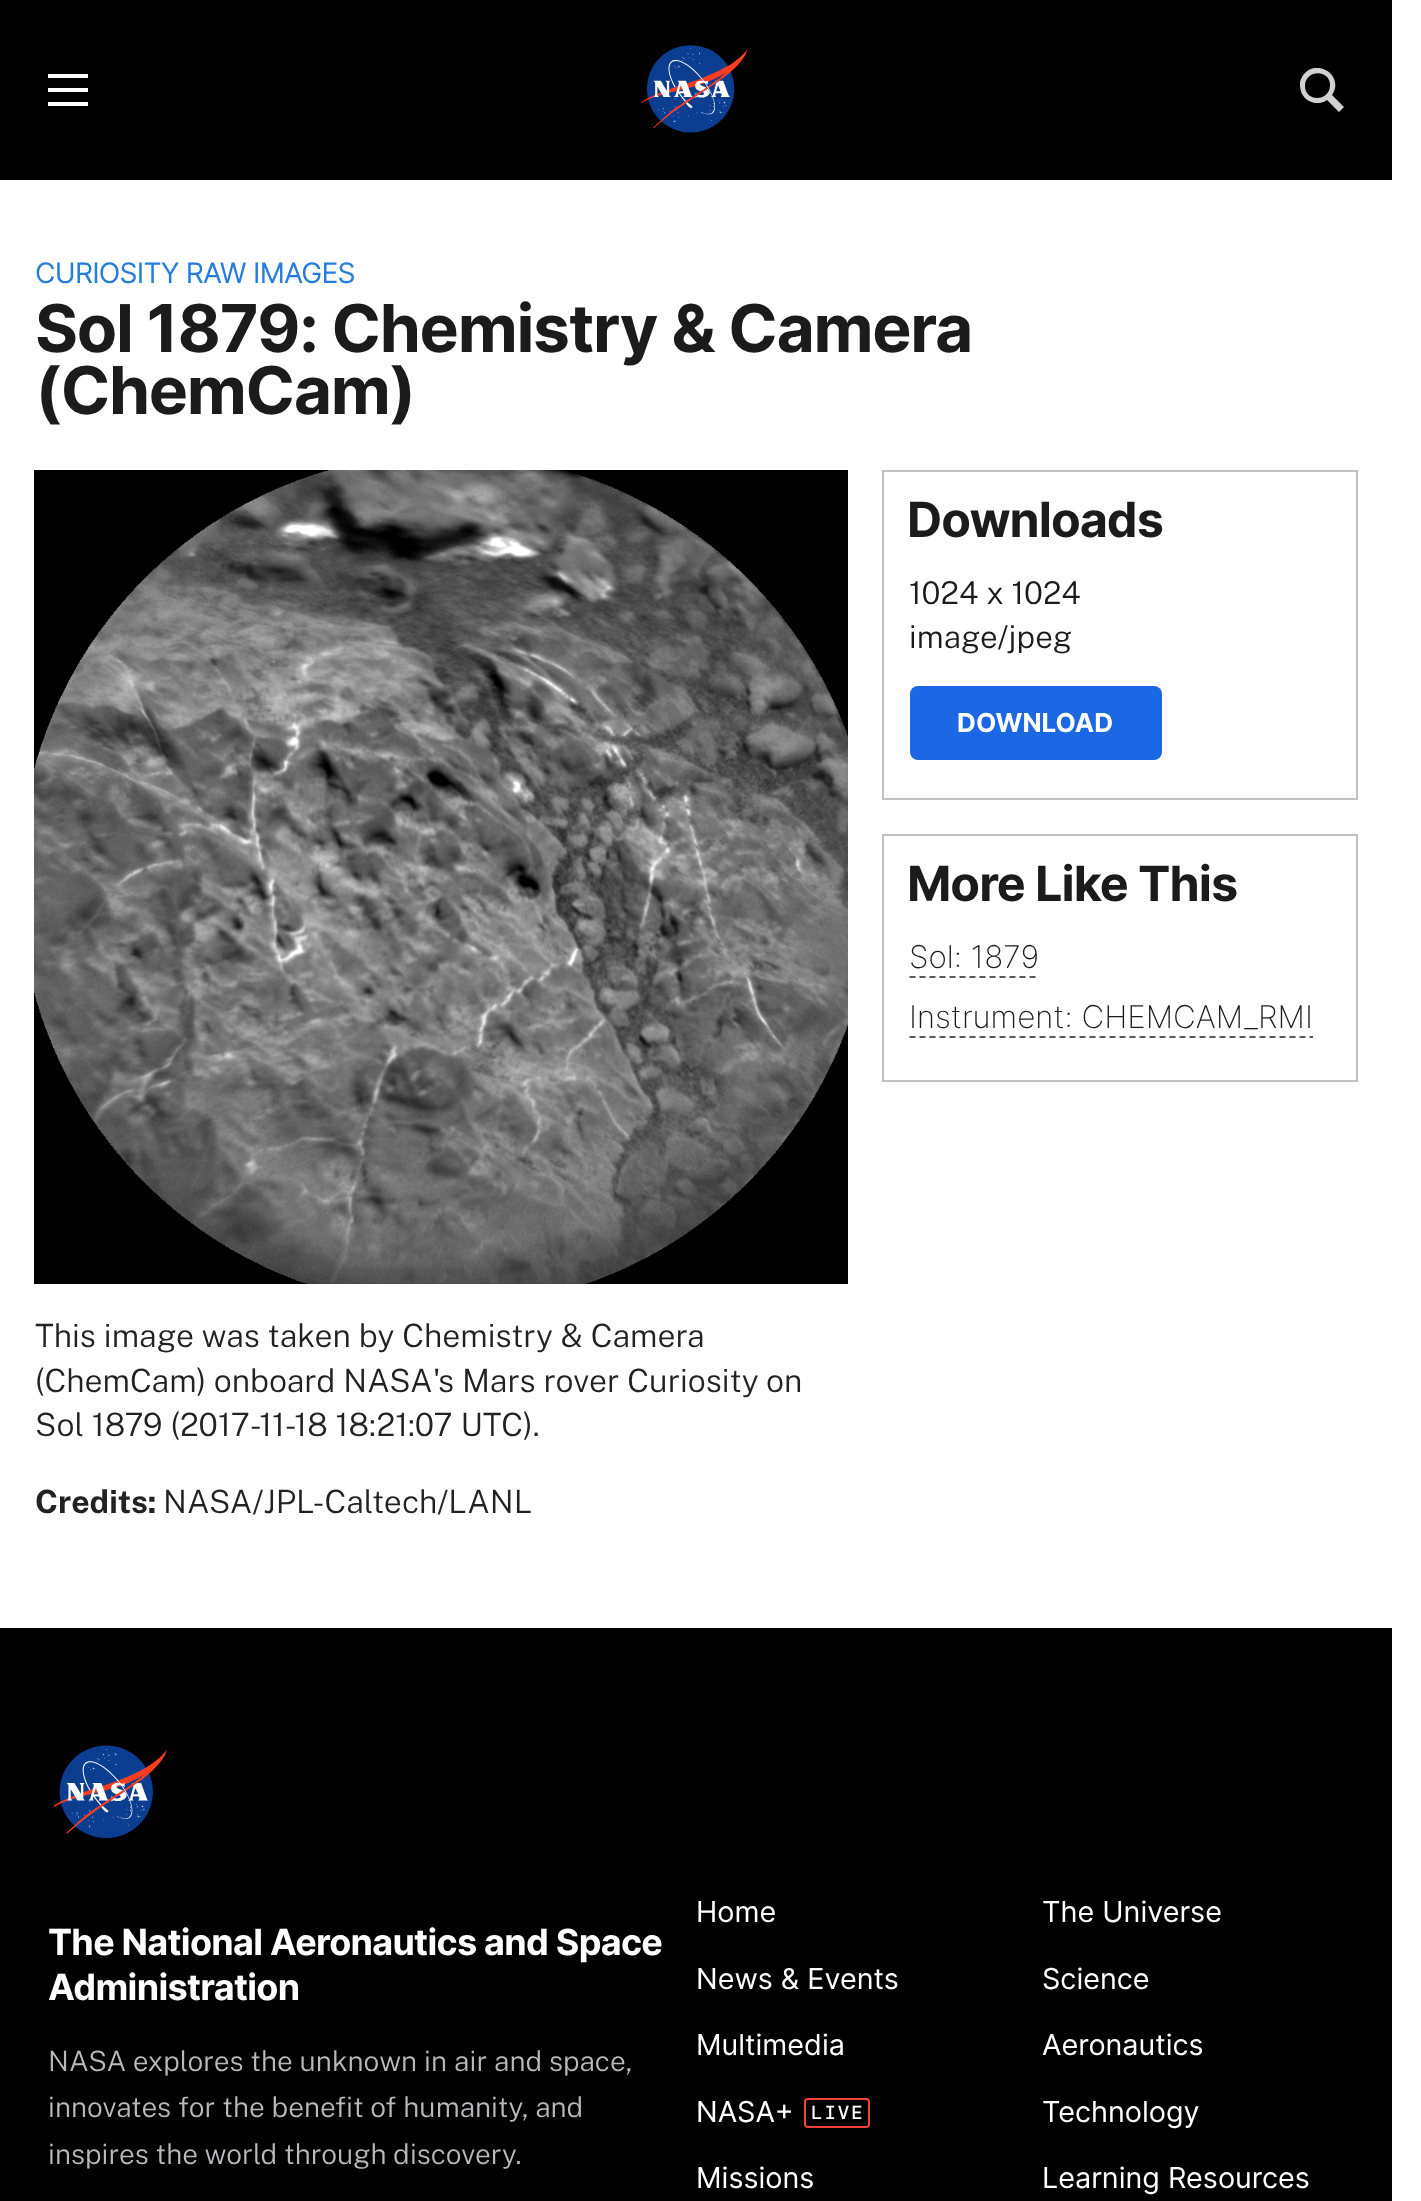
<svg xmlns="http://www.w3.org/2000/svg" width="1421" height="2201">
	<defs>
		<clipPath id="clip1"><rect x="1300" y="68" width="44" height="44" /></clipPath>
	</defs>
	<rect width="100%" height="100%" fill="#FFFFFF" />
	<rect x="0" y="0" width="1392" height="180" fill="#000000" />
	<rect x="48" y="74" width="40" height="4" fill="#FFFFFF" />
	<rect x="48" y="88" width="40" height="4" fill="#FFFFFF" />
	<rect x="48" y="102" width="40" height="4" fill="#FFFFFF" />
	<image x="641" y="45" width="107" height="88" href="assets/img1.png" />
	<g clip-path="url(#clip1)">
		<path d="M1344 107L1332 95C1346 74 1312 55 1301 79C1299 83 1300 89 1302 94C1307 103 1319 106 1327 100L1339 112ZM1305 86C1305 69 1331 69 1330 86C1329 102 1305 102 1305 86Z" fill="#D1D1D1" />
	</g>
	<text x="35" y="283" font-family="Inter" font-size="28.25" letter-spacing="-0.8" fill="#257CDF">CURIOSITY RAW IMAGES</text>
	<g font-family="Inter" font-size="65.9" font-weight="700" letter-spacing="-1.3" fill="#1B1B1B">
		<text x="35" y="352">Sol 1879: Chemistry &amp; Camera</text>
		<text x="35" y="414">(ChemCam)</text>
	</g>
	<rect x="883" y="471" width="474" height="328" fill="none" stroke="#C1C1C1" stroke-width="2" />
	<text x="907" y="537" font-family="Inter" font-size="48.5" font-weight="700" letter-spacing="-1" fill="#1B1B1B">Downloads</text>
	<g font-family="Public Sans" font-size="31.4" font-weight="300" fill="#1B1B1B">
		<text x="909" y="604">1024 x 1024</text>
		<text x="909" y="648">image/jpeg</text>
	</g>
	<rect x="910" y="686" width="252" height="74" rx="8" fill="#1C67E3" />
	<text x="957" y="732" font-family="Inter" font-size="26" font-weight="700" fill="#FFFFFF">DOWNLOAD</text>
	<rect x="883" y="835" width="474" height="246" fill="none" stroke="#C1C1C1" stroke-width="2" />
	<text x="907" y="901" font-family="Inter" font-size="48.5" font-weight="700" letter-spacing="-1" fill="#1B1B1B">More Like This</text>
	<text x="909" y="968" font-family="Inter" font-size="31.4" font-weight="200" fill="#1B1B1B">Sol: 1879</text>
	<path d="M909.5 977H1039.5" fill="none" stroke="#58585B" stroke-width="2" stroke-dasharray="6 4" />
	<text x="909" y="1028" font-family="Inter" font-size="31.4" font-weight="200" fill="#1B1B1B">Instrument: CHEMCAM_RMI</text>
	<path d="M909.5 1037H1313" fill="none" stroke="#58585B" stroke-width="2" stroke-dasharray="6 4" />
	<image x="34" y="470" width="814" height="814" href="assets/img2.png" />
	<g font-family="Public Sans" font-size="32" font-weight="300" fill="#222222">
		<text x="35" y="1347">This image was taken by Chemistry &amp; Camera</text>
		<text x="35" y="1392">(ChemCam) onboard NASA's Mars rover Curiosity on</text>
		<text x="35" y="1436">Sol 1879 (2017-11-18 18:21:07 UTC).</text>
	</g>
	<text x="35" y="1513" font-family="Public Sans" font-size="32" font-weight="700" fill="#222222">Credits:</text>
	<text x="163" y="1513" font-family="Public Sans" font-size="32" font-weight="300" fill="#222222">NASA/JPL-Caltech/LANL</text>
	<rect x="0" y="1628" width="1392" height="573" fill="#000000" />
	<image x="53" y="1745" width="115" height="93" href="assets/img3.png" />
	<g font-family="Inter" font-size="36" font-weight="700" letter-spacing="-0.7" fill="#FFFFFF">
		<text x="48" y="1955">The National Aeronautics and Space</text>
		<text x="48" y="2000">Administration</text>
	</g>
	<g font-family="Public Sans" font-size="28" font-weight="300" fill="#B9B9BB">
		<text x="48" y="2071">NASA explores the unknown in air and space,</text>
		<text x="48" y="2117">innovates for the benefit of humanity, and</text>
		<text x="48" y="2164">inspires the world through discovery.</text>
	</g>
	<g font-family="Inter" font-size="28.75" fill="#FFFFFF">
		<text x="696" y="1922">Home</text>
		<text x="1042" y="1922">The Universe</text>
		<text x="696" y="1989">News &amp; Events</text>
		<text x="1042" y="1989">Science</text>
		<text x="696" y="2055">Multimedia</text>
		<text x="1042" y="2055">Aeronautics</text>
		<text x="696" y="2122">NASA+</text>
	</g>
	<rect x="805" y="2099" width="64" height="28" rx="3" fill="none" stroke="#F64137" stroke-width="2" />
	<text x="811" y="2119" font-family="DM Mono" font-size="19" font-weight="500" letter-spacing="2" fill="#FFFFFF">LIVE</text>
	<g font-family="Inter" font-size="28.75" fill="#FFFFFF">
		<text x="1042" y="2122">Technology</text>
		<text x="696" y="2188">Missions</text>
		<text x="1042" y="2188">Learning Resources</text>
	</g>
</svg>
